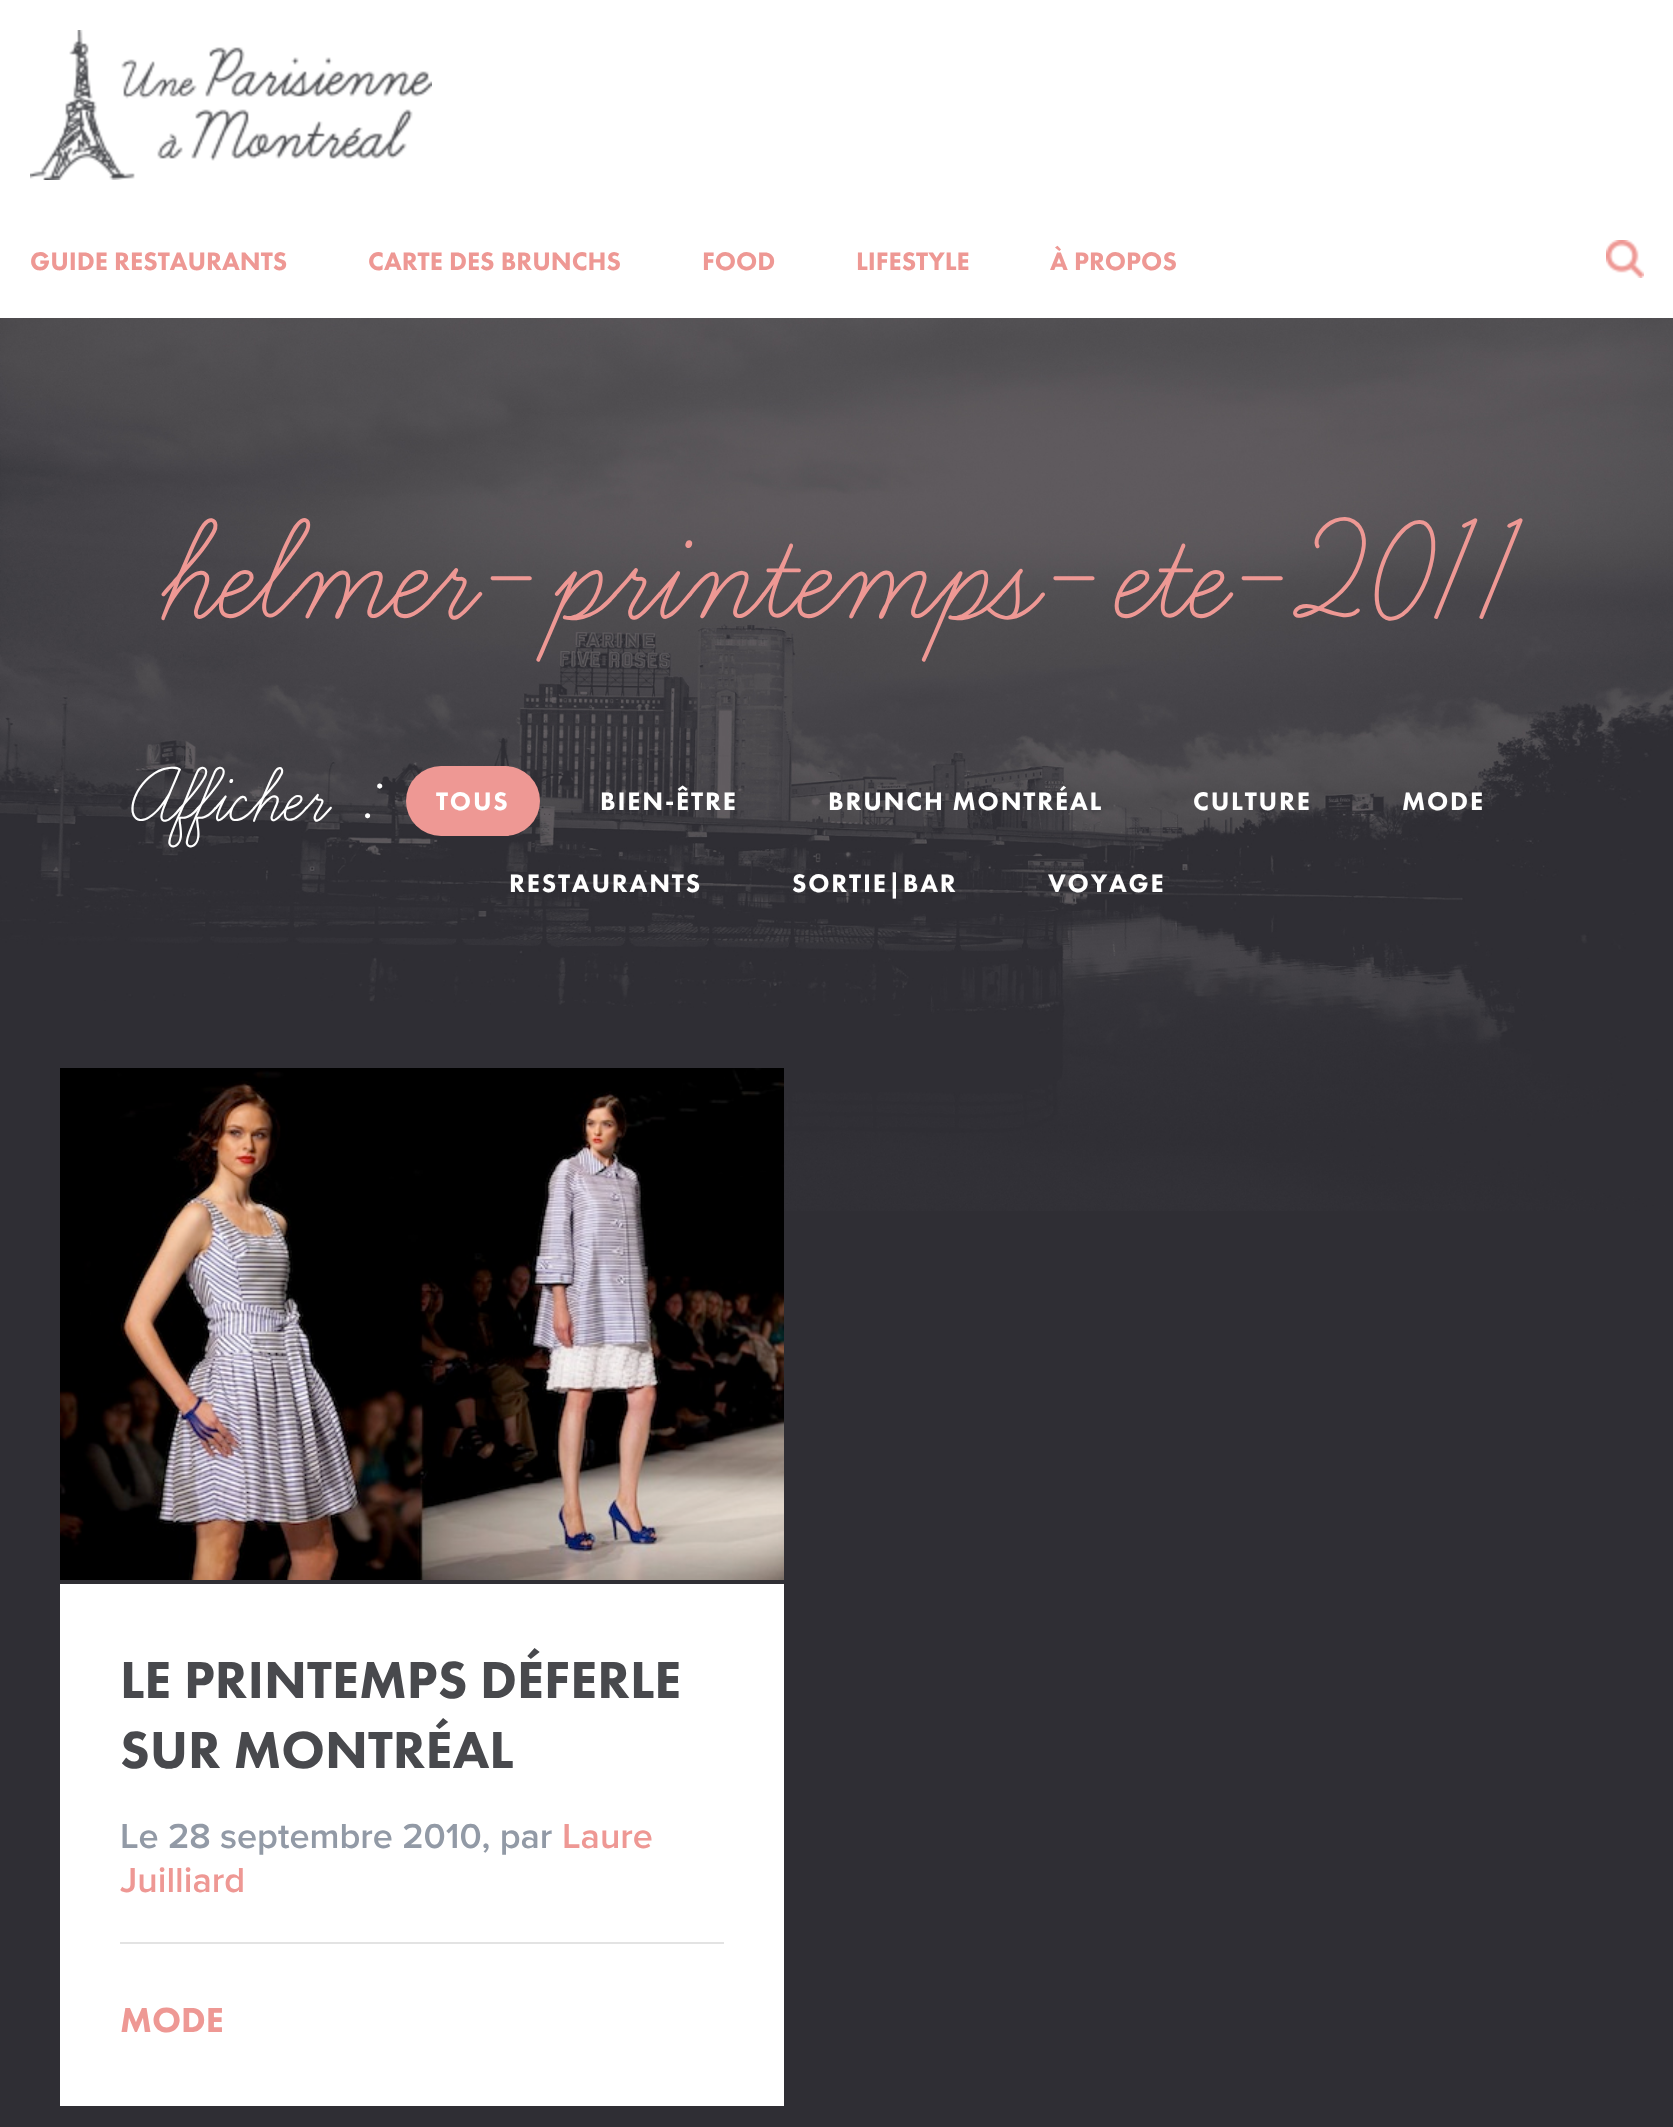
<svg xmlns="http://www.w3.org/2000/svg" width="1673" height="2127">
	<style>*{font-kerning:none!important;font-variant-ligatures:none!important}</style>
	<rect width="100%" height="100%" fill="#2F2E34" />
	<rect x="0" y="0" width="1673" height="318" fill="#FFFFFF" />
	<image x="30" y="30" width="402" height="150" href="assets/img1.png" />
	<g font-family="Futura PT" font-size="26.25" font-weight="900" fill="#EE9894">
		<text x="30" y="270">GUIDE RESTAURANTS</text>
		<text x="368" y="270">CARTE DES BRUNCHS</text>
		<text x="702" y="270">FOOD</text>
		<text x="856" y="270">LIFESTYLE</text>
		<text x="1050" y="270">À PROPOS</text>
	</g>
	<image x="1606" y="240" width="38" height="38" href="assets/img2.png" />
	<image x="0" y="318" width="1673" height="893" href="assets/img3.png" />
	<text x="153" y="624" font-family="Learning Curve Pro" font-size="174.5" fill="#EE9894">helmer-printemps-ete-2011</text>
	<text x="129" y="824" font-family="Learning Curve Pro" font-size="94" fill="#FFFFFF">Afficher :</text>
	<rect x="406" y="766" width="134" height="70" rx="35" fill="#EE9894" />
	<g font-family="Futura PT" font-size="26.25" font-weight="900" letter-spacing="1.8" fill="#FFFFFF">
		<text x="436" y="810">TOUS</text>
		<text x="600" y="810">BIEN-ÊTRE</text>
		<text x="828" y="810">BRUNCH MONTRÉAL</text>
		<text x="1193" y="810">CULTURE</text>
		<text x="1402" y="810">MODE</text>
		<text x="509" y="892">RESTAURANTS</text>
		<text x="792" y="892">SORTIE|BAR</text>
		<text x="1048" y="892">VOYAGE</text>
	</g>
	<image x="60" y="1068" width="724" height="512" href="assets/img4.png" />
	<rect x="60" y="1584" width="724" height="522" fill="#FFFFFF" />
	<g font-family="Futura PT" font-size="54" font-weight="900" fill="#48494D">
		<text x="120" y="1698">LE PRINTEMPS DÉFERLE</text>
		<text x="120" y="1768">SUR MONTRÉAL</text>
	</g>
	<text x="120" y="1848" font-family="Proxima Nova" font-size="36" font-weight="600" fill="#929AA6">Le 28 septembre 2010, par</text>
	<g font-family="Proxima Nova" font-size="36" font-weight="600" fill="#EE9894">
		<text x="562" y="1848">Laure</text>
		<text x="120" y="1892">Juilliard</text>
	</g>
	<rect x="120" y="1942" width="604" height="2" fill="#E3E3E3" />
	<text x="120" y="2032" font-family="Futura PT" font-size="36" font-weight="900" fill="#EE9894">MODE</text>
</svg>
